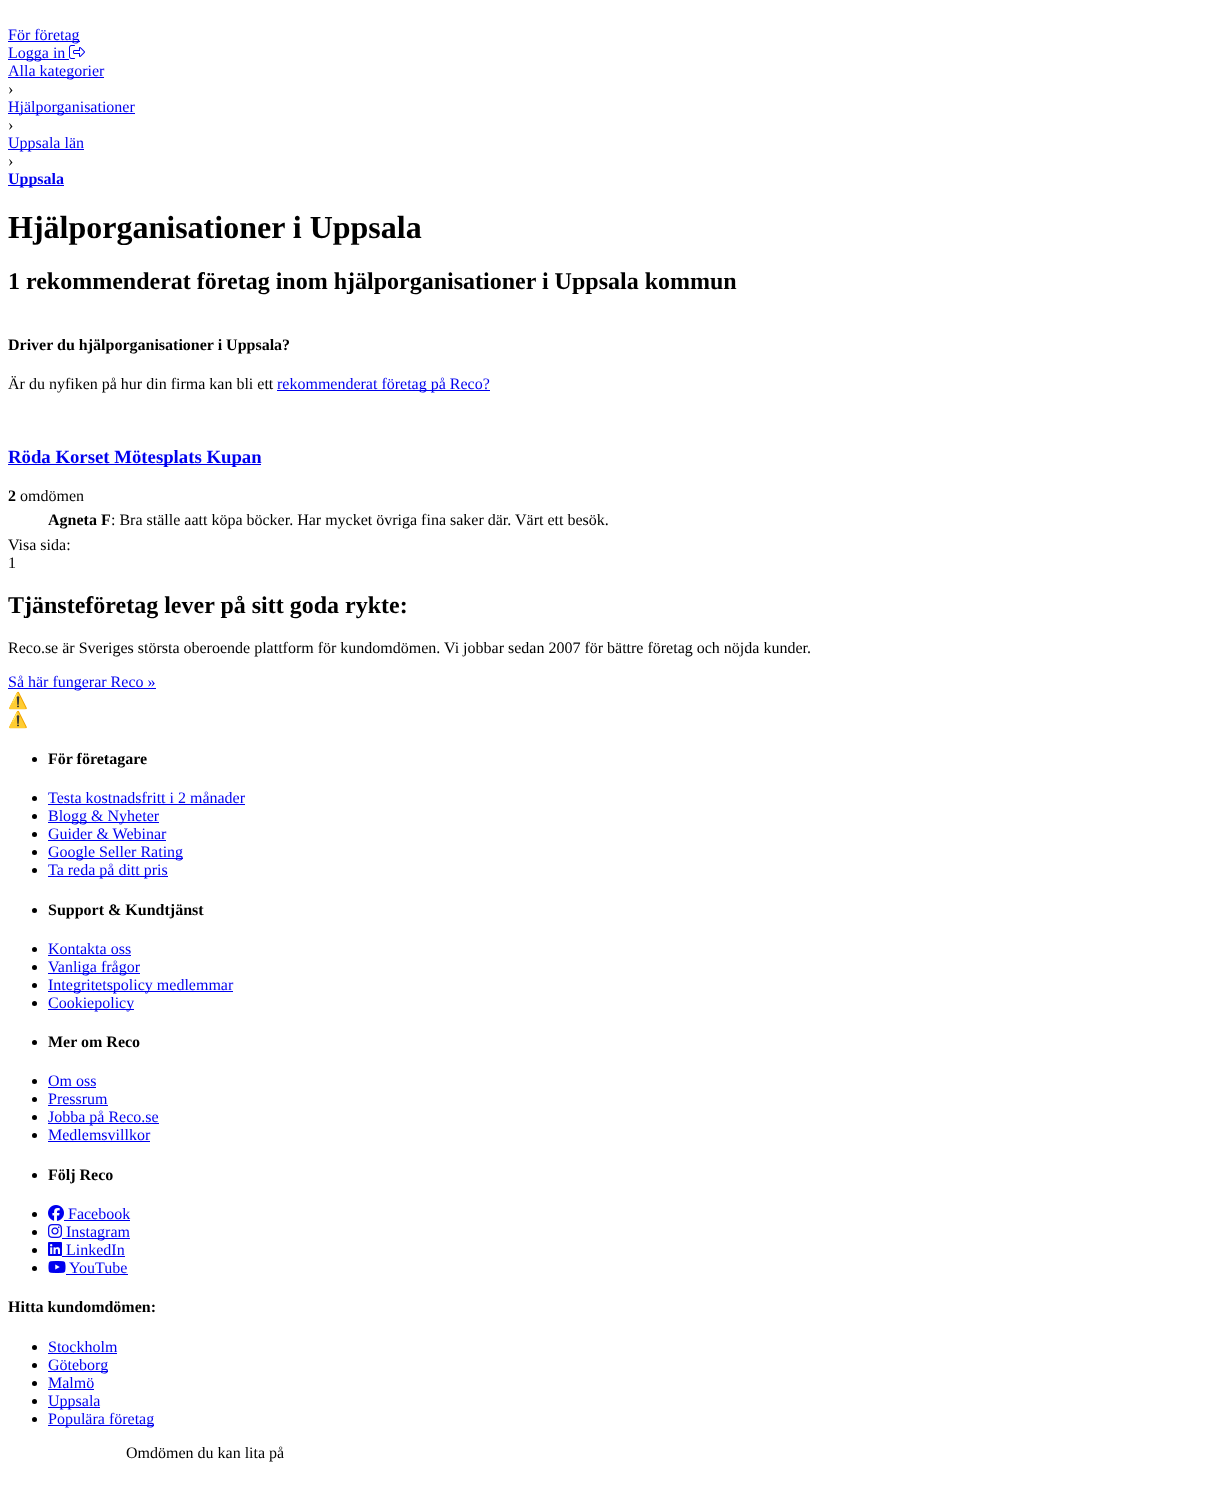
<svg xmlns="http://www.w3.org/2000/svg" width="1228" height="1494">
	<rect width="100%" height="100%" fill="#FFFFFF" />
	<rect x="8" y="41" width="72" height="1" fill="#0000EE" />
	<text x="8" y="40" font-family="Liberation Serif" font-size="16" fill="#0000EE">För företag</text>
	<rect x="8" y="59" width="57" height="1" fill="#0000EE" />
	<text x="8" y="58" font-family="Liberation Serif" font-size="16" fill="#0000EE">Logga in</text>
	<rect x="65" y="59" width="4" height="1" fill="#0000EE" />
	<image x="69" y="45" width="16" height="14" href="assets/img1.png" />
	<rect x="8" y="77" width="96" height="1" fill="#0000EE" />
	<text x="8" y="76" font-family="Liberation Serif" font-size="16" fill="#0000EE">Alla kategorier</text>
	<text x="8" y="94" font-family="Liberation Serif" font-size="16" fill="#000000">›</text>
	<rect x="8" y="113" width="127" height="1" fill="#0000EE" />
	<text x="8" y="112" font-family="Liberation Serif" font-size="16" fill="#0000EE">Hjälporganisationer</text>
	<text x="8" y="130" font-family="Liberation Serif" font-size="16" fill="#000000">›</text>
	<rect x="8" y="149" width="76" height="1" fill="#0000EE" />
	<text x="8" y="148" font-family="Liberation Serif" font-size="16" fill="#0000EE">Uppsala län</text>
	<text x="8" y="166" font-family="Liberation Serif" font-size="16" fill="#000000">›</text>
	<rect x="8" y="185" width="56" height="1" fill="#0000EE" />
	<text x="8" y="184" font-family="Liberation Serif" font-size="16" font-weight="700" fill="#0000EE">Uppsala</text>
	<text x="8" y="238" font-family="Liberation Serif" font-size="32" font-weight="700" fill="#000000">Hjälporganisationer i Uppsala</text>
	<text x="8" y="289" font-family="Liberation Serif" font-size="24" font-weight="700" fill="#000000">1 rekommenderat företag inom hjälporganisationer i Uppsala kommun</text>
	<text x="8" y="350" font-family="Liberation Serif" font-size="16" font-weight="700" fill="#000000">Driver du hjälporganisationer i Uppsala?</text>
	<text x="8" y="389" font-family="Liberation Serif" font-size="16" fill="#000000">Är du nyfiken på hur din firma kan bli ett</text>
	<rect x="277" y="390" width="213" height="1" fill="#0000EE" />
	<text x="277" y="389" font-family="Liberation Serif" font-size="16" fill="#0000EE">rekommenderat företag på Reco?</text>
	<rect x="8" y="464" width="253" height="1" fill="#0000EE" />
	<text x="8" y="463" font-family="Liberation Serif" font-size="18.75" font-weight="700" fill="#0000EE">Röda Korset Mötesplats Kupan</text>
	<text x="8" y="501" font-family="Liberation Serif" font-size="16" font-weight="700" fill="#000000">2</text>
	<text x="20" y="501" font-family="Liberation Serif" font-size="16" fill="#000000">omdömen</text>
	<text x="48" y="525" font-family="Liberation Serif" font-size="16" font-weight="700" fill="#000000">Agneta F</text>
	<g font-family="Liberation Serif" font-size="16" fill="#000000">
		<text x="111" y="525">: Bra ställe aatt köpa böcker. Har mycket övriga fina saker där. Värt ett besök.</text>
		<text x="8" y="550">Visa sida:</text>
		<text x="8" y="568">1</text>
	</g>
	<text x="8" y="613" font-family="Liberation Serif" font-size="24" font-weight="700" fill="#000000">Tjänsteföretag lever på sitt goda rykte:</text>
	<text x="8" y="653" font-family="Liberation Serif" font-size="16" fill="#000000">Reco.se är Sveriges största oberoende plattform för kundomdömen. Vi jobbar sedan 2007 för bättre företag och nöjda kunder.</text>
	<rect x="8" y="688" width="148" height="1" fill="#0000EE" />
	<text x="8" y="687" font-family="Liberation Serif" font-size="16" fill="#0000EE">Så här fungerar Reco »</text>
	<g font-family="Noto Color Emoji" font-size="16" fill="#000000">
		<text x="8" y="706">⚠️</text>
		<text x="8" y="725">⚠️</text>
	</g>
	<circle cx="34.5" cy="759.5" r="2.5" fill="#000000" />
	<text x="48" y="764" font-family="Liberation Serif" font-size="16" font-weight="700" fill="#000000">För företagare</text>
	<circle cx="34.5" cy="798.5" r="2.5" fill="#000000" />
	<text x="48" y="803" font-family="Liberation Serif" font-size="16" fill="#0000EE">Testa kostnadsfritt i 2 månader</text>
	<rect x="48" y="804" width="197" height="1" fill="#0000EE" />
	<circle cx="34.5" cy="816.5" r="2.5" fill="#000000" />
	<rect x="48" y="822" width="111" height="1" fill="#0000EE" />
	<text x="48" y="821" font-family="Liberation Serif" font-size="16" fill="#0000EE">Blogg &amp; Nyheter</text>
	<circle cx="34.5" cy="834.5" r="2.5" fill="#000000" />
	<text x="48" y="839" font-family="Liberation Serif" font-size="16" fill="#0000EE">Guider &amp; Webinar</text>
	<rect x="48" y="840" width="118" height="1" fill="#0000EE" />
	<circle cx="34.5" cy="852.5" r="2.5" fill="#000000" />
	<rect x="48" y="858" width="135" height="1" fill="#0000EE" />
	<text x="48" y="857" font-family="Liberation Serif" font-size="16" fill="#0000EE">Google Seller Rating</text>
	<circle cx="34.5" cy="870.5" r="2.5" fill="#000000" />
	<rect x="48" y="876" width="120" height="1" fill="#0000EE" />
	<text x="48" y="875" font-family="Liberation Serif" font-size="16" fill="#0000EE">Ta reda på ditt pris</text>
	<circle cx="34.5" cy="910.5" r="2.5" fill="#000000" />
	<text x="48" y="915" font-family="Liberation Serif" font-size="16" font-weight="700" fill="#000000">Support &amp; Kundtjänst</text>
	<circle cx="34.5" cy="949.5" r="2.5" fill="#000000" />
	<text x="48" y="954" font-family="Liberation Serif" font-size="16" fill="#0000EE">Kontakta oss</text>
	<rect x="48" y="955" width="83" height="1" fill="#0000EE" />
	<circle cx="34.5" cy="967.5" r="2.5" fill="#000000" />
	<rect x="48" y="973" width="92" height="1" fill="#0000EE" />
	<text x="48" y="972" font-family="Liberation Serif" font-size="16" fill="#0000EE">Vanliga frågor</text>
	<circle cx="34.5" cy="985.5" r="2.5" fill="#000000" />
	<rect x="48" y="991" width="185" height="1" fill="#0000EE" />
	<text x="48" y="990" font-family="Liberation Serif" font-size="16" fill="#0000EE">Integritetspolicy medlemmar</text>
	<circle cx="34.5" cy="1003.5" r="2.5" fill="#000000" />
	<rect x="48" y="1009" width="86" height="1" fill="#0000EE" />
	<text x="48" y="1008" font-family="Liberation Serif" font-size="16" fill="#0000EE">Cookiepolicy</text>
	<circle cx="34.5" cy="1042.5" r="2.5" fill="#000000" />
	<text x="48" y="1047" font-family="Liberation Serif" font-size="16" font-weight="700" fill="#000000">Mer om Reco</text>
	<circle cx="34.5" cy="1081.5" r="2.5" fill="#000000" />
	<text x="48" y="1086" font-family="Liberation Serif" font-size="16" fill="#0000EE">Om oss</text>
	<rect x="48" y="1087" width="48" height="1" fill="#0000EE" />
	<circle cx="34.5" cy="1099.5" r="2.5" fill="#000000" />
	<text x="48" y="1104" font-family="Liberation Serif" font-size="16" fill="#0000EE">Pressrum</text>
	<rect x="48" y="1105" width="60" height="1" fill="#0000EE" />
	<circle cx="34.5" cy="1117.5" r="2.5" fill="#000000" />
	<rect x="48" y="1123" width="111" height="1" fill="#0000EE" />
	<text x="48" y="1122" font-family="Liberation Serif" font-size="16" fill="#0000EE">Jobba på Reco.se</text>
	<circle cx="34.5" cy="1135.5" r="2.5" fill="#000000" />
	<text x="48" y="1140" font-family="Liberation Serif" font-size="16" fill="#0000EE">Medlemsvillkor</text>
	<rect x="48" y="1141" width="102" height="1" fill="#0000EE" />
	<circle cx="34.5" cy="1175.5" r="2.5" fill="#000000" />
	<text x="48" y="1180" font-family="Liberation Serif" font-size="16" font-weight="700" fill="#000000">Följ Reco</text>
	<circle cx="34.5" cy="1214.5" r="2.5" fill="#000000" />
	<image x="48" y="1205" width="16" height="16" href="assets/img2.png" />
	<text x="68" y="1219" font-family="Liberation Serif" font-size="16" fill="#0000EE">Facebook</text>
	<rect x="64" y="1220" width="66" height="1" fill="#0000EE" />
	<circle cx="34.5" cy="1232.5" r="2.5" fill="#000000" />
	<image x="48" y="1224" width="14" height="14" href="assets/img3.png" />
	<rect x="62" y="1238" width="68" height="1" fill="#0000EE" />
	<text x="66" y="1237" font-family="Liberation Serif" font-size="16" fill="#0000EE">Instagram</text>
	<circle cx="34.5" cy="1250.5" r="2.5" fill="#000000" />
	<image x="48" y="1242" width="14" height="14" href="assets/img4.png" />
	<text x="66" y="1255" font-family="Liberation Serif" font-size="16" fill="#0000EE">LinkedIn</text>
	<rect x="62" y="1256" width="63" height="1" fill="#0000EE" />
	<circle cx="34.5" cy="1268.5" r="2.5" fill="#000000" />
	<image x="48" y="1261" width="18" height="12" href="assets/img5.png" />
	<text x="69" y="1273" font-family="Liberation Serif" font-size="16" fill="#0000EE">YouTube</text>
	<rect x="66" y="1274" width="62" height="1" fill="#0000EE" />
	<text x="8" y="1312" font-family="Liberation Serif" font-size="16" font-weight="700" fill="#000000">Hitta kundomdömen:</text>
	<circle cx="34.5" cy="1347.5" r="2.5" fill="#000000" />
	<text x="48" y="1352" font-family="Liberation Serif" font-size="16" fill="#0000EE">Stockholm</text>
	<rect x="48" y="1353" width="69" height="1" fill="#0000EE" />
	<circle cx="34.5" cy="1365.5" r="2.5" fill="#000000" />
	<rect x="48" y="1371" width="60" height="1" fill="#0000EE" />
	<text x="48" y="1370" font-family="Liberation Serif" font-size="16" fill="#0000EE">Göteborg</text>
	<circle cx="34.5" cy="1383.5" r="2.5" fill="#000000" />
	<text x="48" y="1388" font-family="Liberation Serif" font-size="16" fill="#0000EE">Malmö</text>
	<rect x="48" y="1389" width="46" height="1" fill="#0000EE" />
	<circle cx="34.5" cy="1401.5" r="2.5" fill="#000000" />
	<rect x="48" y="1407" width="52" height="1" fill="#0000EE" />
	<text x="48" y="1406" font-family="Liberation Serif" font-size="16" fill="#0000EE">Uppsala</text>
	<circle cx="34.5" cy="1419.5" r="2.5" fill="#000000" />
	<rect x="48" y="1425" width="106" height="1" fill="#0000EE" />
	<text x="48" y="1424" font-family="Liberation Serif" font-size="16" fill="#0000EE">Populära företag</text>
	<text x="126" y="1458" font-family="Liberation Serif" font-size="16" fill="#000000">Omdömen du kan lita på</text>
</svg>
